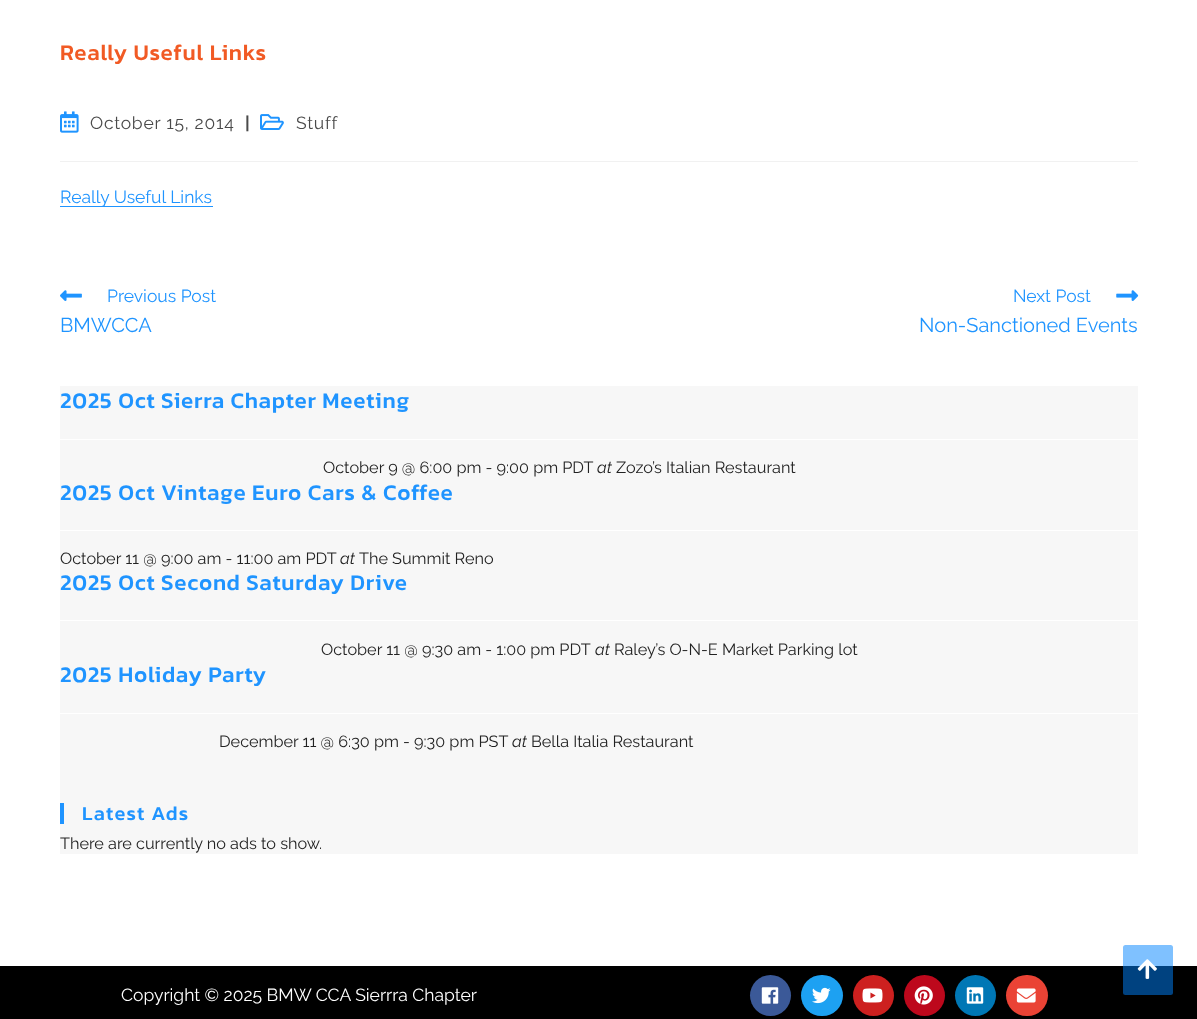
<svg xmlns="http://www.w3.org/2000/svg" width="1197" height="1019">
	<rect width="100%" height="100%" fill="#FFFFFF" />
	<text x="60" y="60" font-family="Kanit" font-size="22.5" font-weight="500" letter-spacing="0.75" fill="#F15A24">Really Useful Links</text>
	<rect x="60" y="161" width="1078" height="1" fill="#F1F1F1" />
	<image x="60" y="111" width="19" height="22" href="assets/img1.png" />
	<text x="90" y="129" font-family="Raleway" font-size="17.5" letter-spacing="0.75" fill="#4A4A4A">October 15, 2014</text>
	<text x="245" y="129" font-family="Raleway" font-size="17.5" font-weight="700" letter-spacing="0.75" fill="#4A4A4A">|</text>
	<image x="260" y="114" width="24" height="16" href="assets/img2.png" />
	<text x="296" y="129" font-family="Raleway" font-size="17.5" letter-spacing="0.75" fill="#4A4A4A">Stuff</text>
	<rect x="60" y="206" width="153" height="1" fill="#1F94FF" />
	<text x="60" y="203" font-family="Raleway" font-size="17.5" fill="#1F94FF">Really Useful Links</text>
	<image x="60" y="290" width="22" height="11" href="assets/img3.png" />
	<text x="107" y="302" font-family="Raleway" font-size="17.5" fill="#1F94FF">Previous Post</text>
	<text x="60" y="332" font-family="Raleway" font-size="20" fill="#1F94FF">BMWCCA</text>
	<text x="1013" y="302" font-family="Raleway" font-size="17.5" fill="#1F94FF">Next Post</text>
	<image x="1116" y="290" width="23" height="11" href="assets/img4.png" />
	<text x="919" y="332" font-family="Raleway" font-size="20" fill="#1F94FF">Non-Sanctioned Events</text>
	<rect x="60" y="386" width="1078" height="468" fill="#F7F7F7" />
	<rect x="60" y="439" width="1078" height="1" fill="#FFFFFF" />
	<text x="60" y="408" font-family="Kanit" font-size="22.5" font-weight="500" letter-spacing="0.75" fill="#1F94FF">2025 Oct Sierra Chapter Meeting</text>
	<text x="323" y="473" font-family="Raleway" font-size="16.25" fill="#222222">October 9 @ 6:00 pm - 9:00 pm PDT</text>
	<text x="597" y="473" font-family="Raleway" font-size="16.25" font-style="italic" fill="#222222">at</text>
	<text x="616" y="473" font-family="Raleway" font-size="16.25" fill="#222222">Zozo’s Italian Restaurant</text>
	<rect x="60" y="530" width="1078" height="1" fill="#FFFFFF" />
	<text x="60" y="500" font-family="Kanit" font-size="22.5" font-weight="500" letter-spacing="0.75" fill="#1F94FF">2025 Oct Vintage Euro Cars &amp; Coffee</text>
	<text x="60" y="564" font-family="Raleway" font-size="16.25" fill="#222222">October 11 @ 9:00 am - 11:00 am PDT</text>
	<text x="340" y="564" font-family="Raleway" font-size="16.25" font-style="italic" fill="#222222">at</text>
	<text x="359" y="564" font-family="Raleway" font-size="16.25" fill="#222222">The Summit Reno</text>
	<rect x="60" y="620" width="1078" height="1" fill="#FFFFFF" />
	<text x="60" y="590" font-family="Kanit" font-size="22.5" font-weight="500" letter-spacing="0.75" fill="#1F94FF">2025 Oct Second Saturday Drive</text>
	<text x="321" y="655" font-family="Raleway" font-size="16.25" fill="#222222">October 11 @ 9:30 am - 1:00 pm PDT</text>
	<text x="595" y="655" font-family="Raleway" font-size="16.25" font-style="italic" fill="#222222">at</text>
	<text x="614" y="655" font-family="Raleway" font-size="16.25" fill="#222222">Raley’s O-N-E Market Parking lot</text>
	<rect x="60" y="713" width="1078" height="1" fill="#FFFFFF" />
	<text x="60" y="682" font-family="Kanit" font-size="22.5" font-weight="500" letter-spacing="0.75" fill="#1F94FF">2025 Holiday Party</text>
	<text x="219" y="747" font-family="Raleway" font-size="16.25" fill="#222222">December 11 @ 6:30 pm - 9:30 pm PST</text>
	<text x="512" y="747" font-family="Raleway" font-size="16.25" font-style="italic" fill="#222222">at</text>
	<text x="531" y="747" font-family="Raleway" font-size="16.25" fill="#222222">Bella Italia Restaurant</text>
	<rect x="60" y="803" width="4" height="21" fill="#1F94FF" />
	<text x="82" y="820" font-family="Kanit" font-size="20" font-weight="500" letter-spacing="1.25" fill="#1F94FF">Latest Ads</text>
	<text x="60" y="849" font-family="Raleway" font-size="16.25" fill="#222222">There are currently no ads to show.</text>
	<rect x="0" y="966" width="1197" height="53" fill="#000000" />
	<text x="121" y="1001" font-family="Raleway" font-size="17.5" fill="#FFFFFF">Copyright © 2025 BMW CCA Sierrra Chapter</text>
	<circle cx="770.5" cy="995.5" r="20.5" fill="#3B5998" />
	<image x="761" y="987" width="18" height="17" href="assets/img5.png" />
	<rect x="801" y="975" width="42" height="41" rx="20.5" fill="#1DA1F2" />
	<image x="812" y="987" width="19" height="17" href="assets/img6.png" />
	<circle cx="873.5" cy="995.5" r="20.5" fill="#CD201F" />
	<image x="862" y="988" width="21" height="15" href="assets/img7.png" />
	<circle cx="924.5" cy="995.5" r="20.5" fill="#BD081C" />
	<image x="914" y="986" width="19" height="19" href="assets/img8.png" />
	<circle cx="975.5" cy="995.5" r="20.5" fill="#0077B5" />
	<image x="966" y="987" width="18" height="17" href="assets/img9.png" />
	<rect x="1006" y="975" width="42" height="41" rx="20.5" fill="#EA4335" />
	<image x="1016" y="988" width="20" height="15" href="assets/img10.png" />
	<rect x="1123" y="945" width="50" height="50" rx="2.5" fill="#0083FF" fill-opacity="0.5" />
	<image x="1137" y="959" width="20" height="20" href="assets/img11.png" />
</svg>
